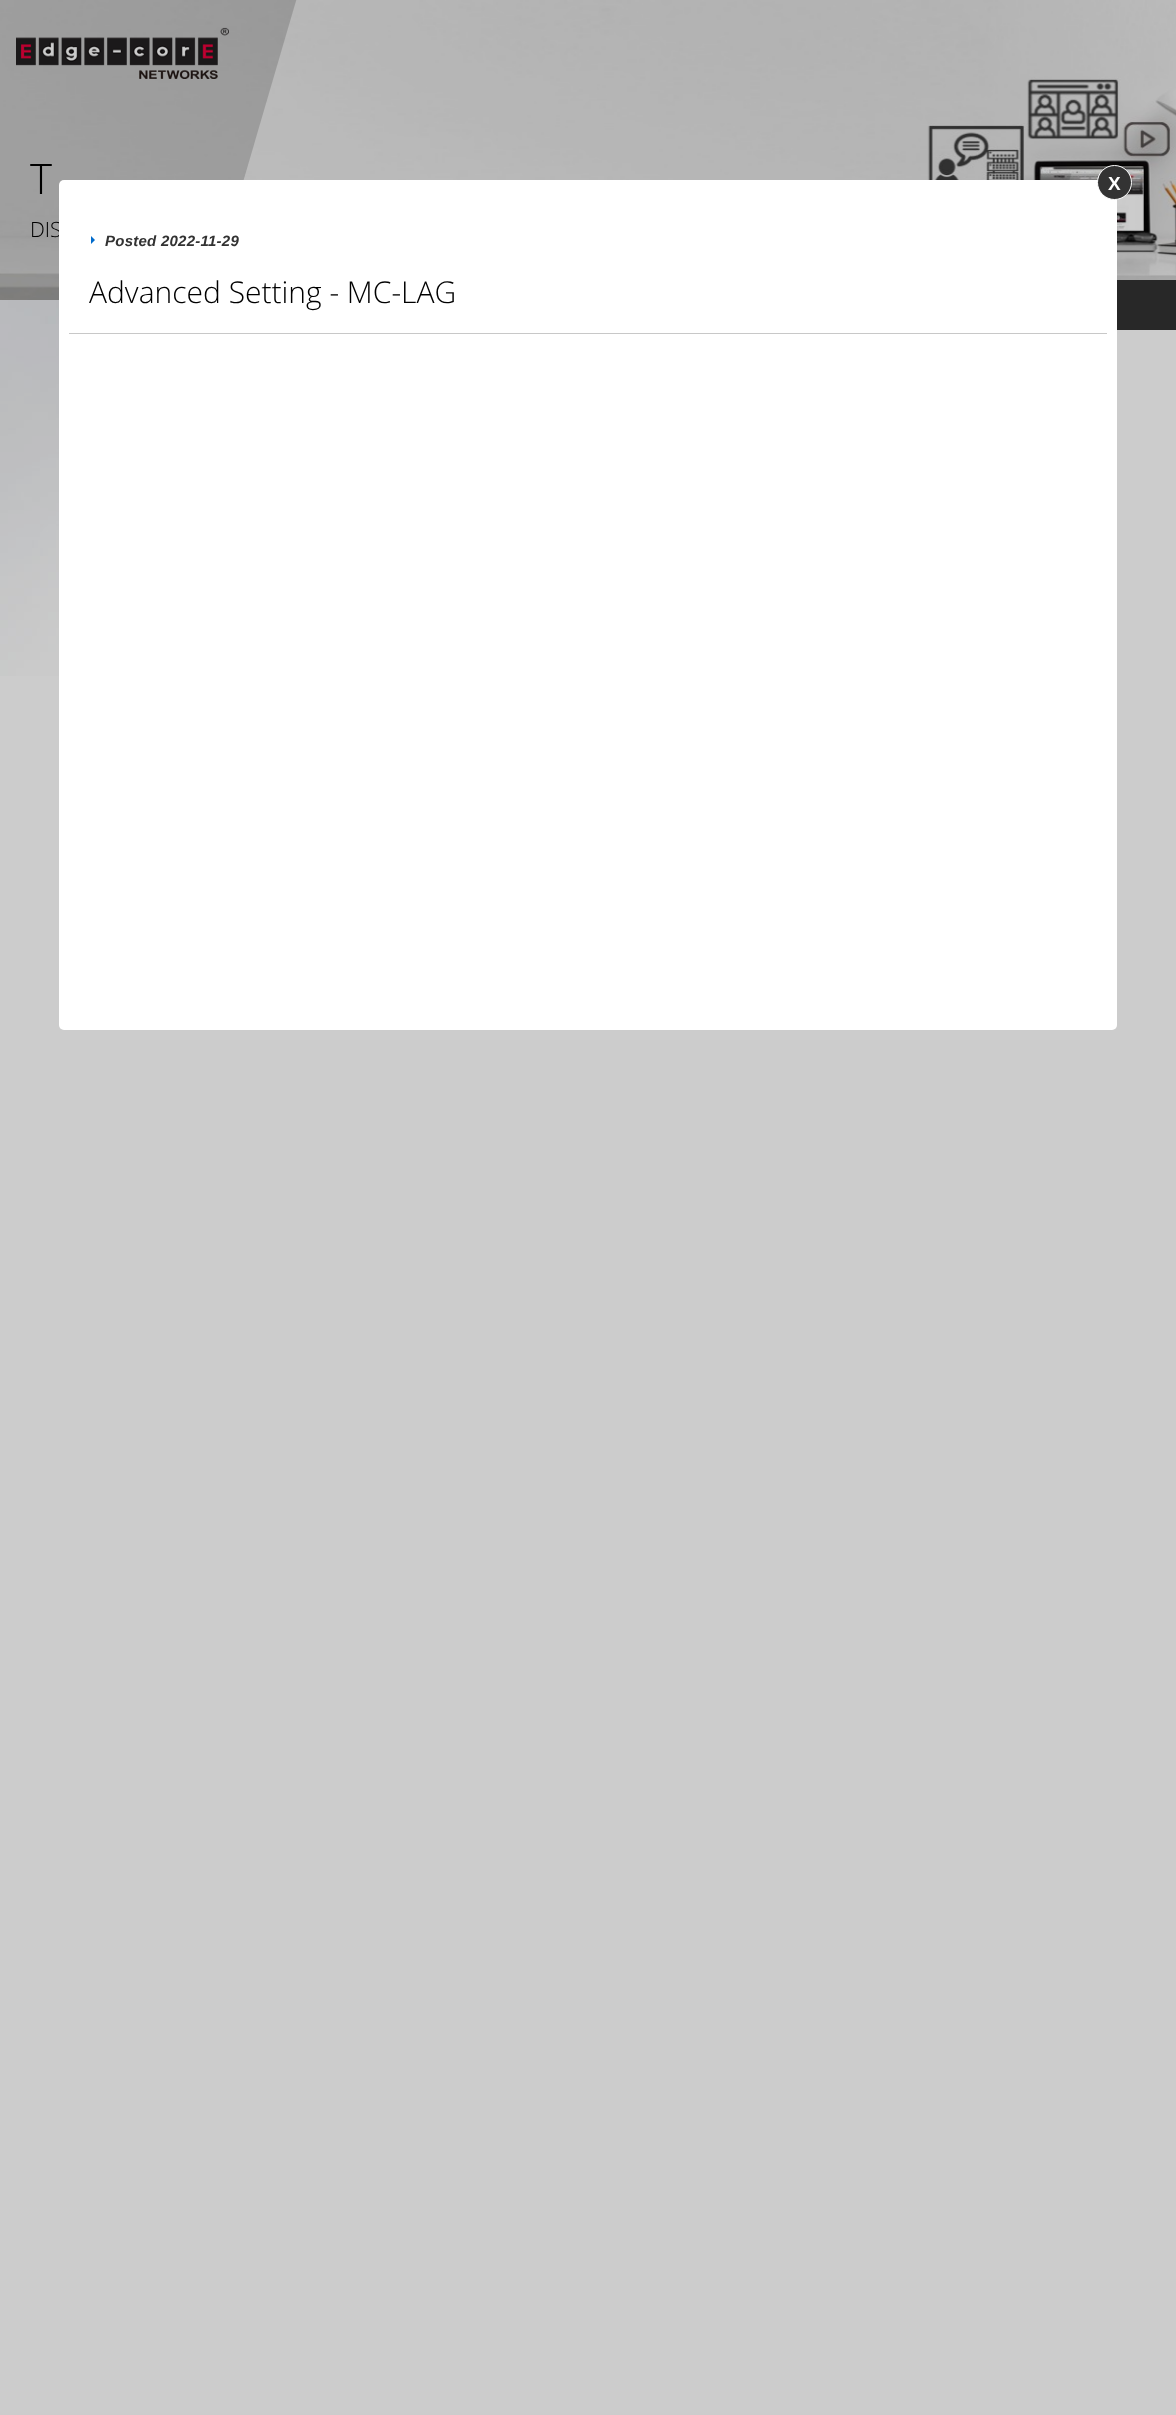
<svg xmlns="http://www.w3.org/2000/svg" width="1176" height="2415">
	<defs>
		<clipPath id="clip1"><rect x="0" y="0" width="1176" height="300" /></clipPath>
	</defs>
	<rect width="100%" height="100%" fill="#CCCCCC" />
	<image x="0" y="0" width="1176" height="300" href="assets/img2.png" />
	<g clip-path="url(#clip1)">
		<path d="M-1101 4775L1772-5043L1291-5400L-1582 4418Z" fill="#000000" fill-opacity="0.16" />
	</g>
	<image x="16" y="27" width="213" height="52" href="assets/img1.png" />
	<text x="30" y="194" font-family="Open Sans" font-size="42" font-weight="300" fill="#000000">T</text>
	<text x="30" y="237" font-family="Open Sans" font-size="21" font-weight="300" fill="#000000">DIS</text>
	<image x="0" y="300" width="59" height="376" href="assets/img3.png" />
	<path d="M1176 330H118L138 280H1176Z" fill="#282828" />
	<rect x="59" y="180" width="1058" height="850" rx="5" fill="#FFFFFF" />
	<circle cx="1114.5" cy="182.5" r="17" fill="#333333" stroke="#FFFFFF" />
	<text x="1108" y="190" font-family="Liberation Sans" font-size="19" font-weight="700" fill="#FFFFFF">X</text>
	<path d="M91 244V236L95 240Z" fill="#016BCC" />
	<text x="105" y="246" font-family="Liberation Sans" font-size="15" font-weight="700" font-style="italic" letter-spacing="0.25" fill="#323232">Posted 2022-11-29</text>
	<rect x="69" y="333" width="1038" height="1" fill="#C8C8C8" />
	<text x="89" y="303" font-family="Open Sans" font-size="30" font-weight="300" fill="#000000">Advanced Setting - MC-LAG</text>
</svg>
